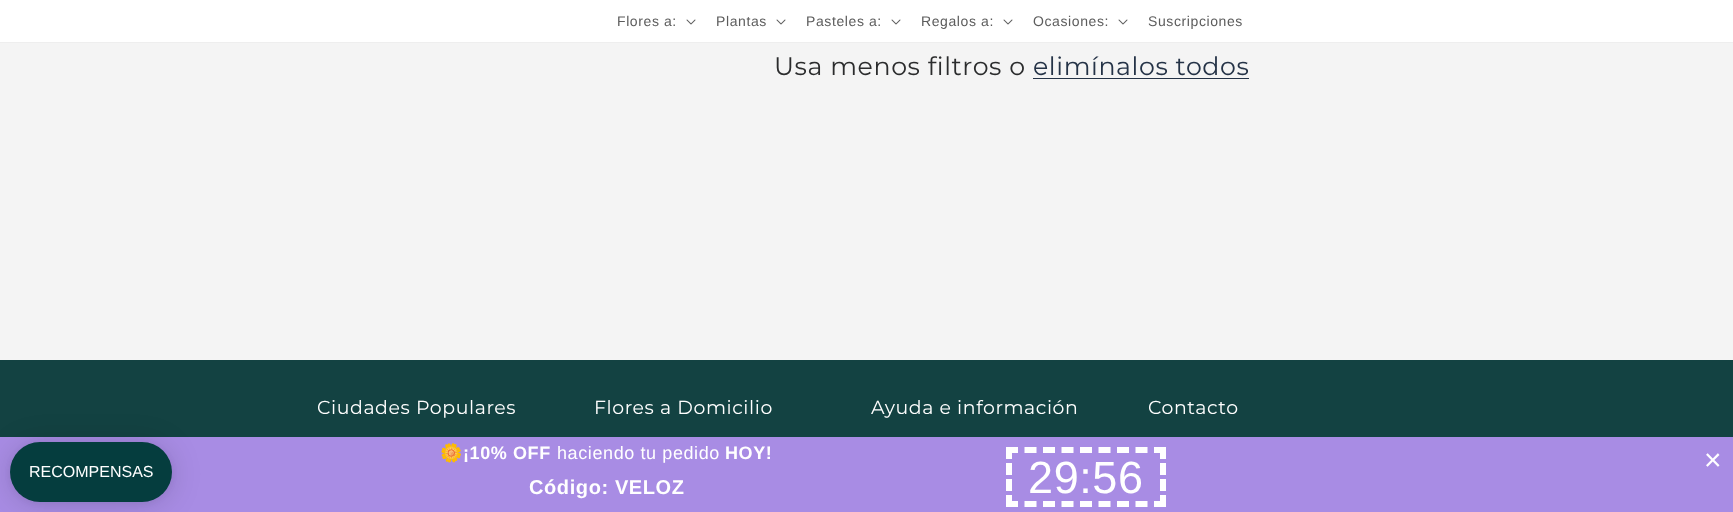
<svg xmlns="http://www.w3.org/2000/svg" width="1733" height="512">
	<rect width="100%" height="100%" fill="#F4F4F4" />
	<rect x="0" y="0" width="1733" height="42" fill="#FFFFFF" />
	<rect x="0" y="42" width="1733" height="1" fill="#EEEEEE" />
	<text x="617" y="26" font-family="Liberation Sans" font-size="14" letter-spacing="0.6" fill="#5C5C5C">Flores a:</text>
	<image x="686" y="19" width="10" height="6" href="assets/img1.png" />
	<text x="716" y="26" font-family="Liberation Sans" font-size="14" letter-spacing="0.6" fill="#5C5C5C">Plantas</text>
	<image x="776" y="19" width="10" height="6" href="assets/img1.png" />
	<text x="806" y="26" font-family="Liberation Sans" font-size="14" letter-spacing="0.6" fill="#5C5C5C">Pasteles a:</text>
	<image x="891" y="19" width="10" height="6" href="assets/img1.png" />
	<text x="921" y="26" font-family="Liberation Sans" font-size="14" letter-spacing="0.6" fill="#5C5C5C">Regalos a:</text>
	<image x="1003" y="19" width="10" height="6" href="assets/img1.png" />
	<text x="1033" y="26" font-family="Liberation Sans" font-size="14" letter-spacing="0.6" fill="#5C5C5C">Ocasiones:</text>
	<image x="1118" y="19" width="10" height="6" href="assets/img1.png" />
	<text x="1148" y="26" font-family="Liberation Sans" font-size="14" letter-spacing="0.6" fill="#5C5C5C">Suscripciones</text>
	<text x="774" y="75" font-family="Montserrat" font-size="25.25" letter-spacing="0.6" fill="#2B2C2D">Usa menos filtros o</text>
	<text x="1033" y="75" font-family="Montserrat" font-size="25.25" letter-spacing="0.6" fill="#253347">elimínalos todos</text>
	<rect x="1033" y="78" width="216" height="1" fill="#253347" />
	<rect x="0" y="360" width="1733" height="77" fill="#134242" />
	<g font-family="Montserrat" font-size="18.9" letter-spacing="0.6" fill="#FFFFFF">
		<text x="317" y="414">Ciudades Populares</text>
		<text x="594" y="414">Flores a Domicilio</text>
		<text x="871" y="414">Ayuda e información</text>
		<text x="1148" y="414">Contacto</text>
	</g>
	<rect x="0" y="437" width="1733" height="75" fill="#A88CE4" />
	<rect x="10" y="444" width="162" height="60" rx="30" fill="#000000" fill-opacity="0.15" filter="blur(15px)" />
	<rect x="10" y="443" width="162" height="60" rx="30" fill="#000000" fill-opacity="0.05" filter="blur(3px)" />
	<rect x="10" y="442" width="162" height="60" rx="30" fill="#053D3E" />
	<text x="29" y="477" font-family="Liberation Sans" font-size="16" fill="#FFFFFF">RECOMPENSAS</text>
	<text x="440" y="459" font-family="Noto Color Emoji" font-size="18" letter-spacing="0.6" fill="#FFFFFF">🌼</text>
	<text x="463" y="459" font-family="Liberation Sans" font-size="18" font-weight="700" letter-spacing="0.6" fill="#FFFFFF">¡10% OFF</text>
	<text x="557" y="459" font-family="Liberation Sans" font-size="18" letter-spacing="0.6" fill="#FFFFFF">haciendo tu pedido</text>
	<text x="725" y="459" font-family="Liberation Sans" font-size="18" font-weight="700" letter-spacing="0.6" fill="#FFFFFF">HOY!</text>
	<text x="529" y="494" font-family="Liberation Sans" font-size="20" font-weight="700" letter-spacing="0.6" fill="#FFFFFF">Código: VELOZ</text>
	<path d="M1006 450H1166" fill="none" stroke="#FFFFFF" stroke-width="6" stroke-dasharray="12 6.5" />
	<path d="M1163 447V507" fill="none" stroke="#FFFFFF" stroke-width="6" stroke-dasharray="12 4" />
	<path d="M1006 504H1166" fill="none" stroke="#FFFFFF" stroke-width="6" stroke-dasharray="12 6.5" />
	<path d="M1009 447V507" fill="none" stroke="#FFFFFF" stroke-width="6" stroke-dasharray="12 4" />
	<text x="1028" y="493" font-family="Liberation Sans" font-size="45" letter-spacing="0.6" fill="#FFFFFF">29:56</text>
	<text x="1704" y="470" font-family="Liberation Sans" font-size="30" fill="#FFFFFF">×</text>
</svg>
